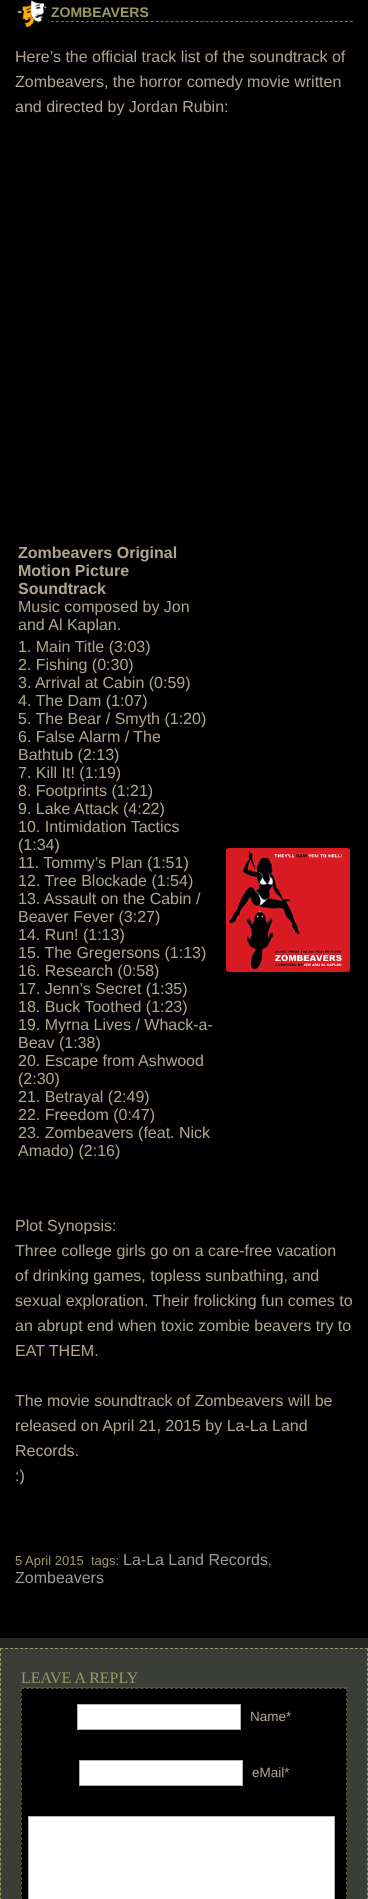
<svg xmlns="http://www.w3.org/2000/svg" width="368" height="1899">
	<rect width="100%" height="100%" fill="#252622" />
	<rect x="0" y="0" width="368" height="1638" fill="#000000" />
	<image x="17" y="0" width="30" height="28" href="assets/img1.png" />
	<path d="M51 21.5H353" fill="none" stroke="#767154" stroke-dasharray="3 1.98" />
	<text x="51" y="17" font-family="Liberation Sans" font-size="14" font-weight="700" fill="#999966">ZOMBEAVERS</text>
	<g font-family="Liberation Sans" font-size="16" fill="#AEA58C">
		<text x="15" y="62">Here’s the official track list of the soundtrack of</text>
		<text x="15" y="87">Zombeavers, the horror comedy movie written</text>
		<text x="15" y="112">and directed by Jordan Rubin:</text>
	</g>
	<g font-family="Liberation Sans" font-size="16" font-weight="700" fill="#AEA58C">
		<text x="18" y="558">Zombeavers Original</text>
		<text x="18" y="576">Motion Picture</text>
		<text x="18" y="594">Soundtrack</text>
	</g>
	<g font-family="Liberation Sans" font-size="16" fill="#AEA58C">
		<text x="18" y="612">Music composed by Jon</text>
		<text x="18" y="630">and Al Kaplan.</text>
		<text x="18" y="652">1. Main Title (3:03)</text>
		<text x="18" y="670">2. Fishing (0:30)</text>
		<text x="18" y="688">3. Arrival at Cabin (0:59)</text>
		<text x="18" y="706">4. The Dam (1:07)</text>
		<text x="18" y="724">5. The Bear / Smyth (1:20)</text>
		<text x="18" y="742">6. False Alarm / The</text>
		<text x="18" y="760">Bathtub (2:13)</text>
		<text x="18" y="778">7. Kill It! (1:19)</text>
		<text x="18" y="796">8. Footprints (1:21)</text>
		<text x="18" y="814">9. Lake Attack (4:22)</text>
		<text x="18" y="832">10. Intimidation Tactics</text>
		<text x="18" y="850">(1:34)</text>
		<text x="18" y="868">11. Tommy’s Plan (1:51)</text>
		<text x="18" y="886">12. Tree Blockade (1:54)</text>
		<text x="18" y="904">13. Assault on the Cabin /</text>
		<text x="18" y="922">Beaver Fever (3:27)</text>
		<text x="18" y="940">14. Run! (1:13)</text>
		<text x="18" y="958">15. The Gregersons (1:13)</text>
		<text x="18" y="976">16. Research (0:58)</text>
		<text x="18" y="994">17. Jenn’s Secret (1:35)</text>
		<text x="18" y="1012">18. Buck Toothed (1:23)</text>
		<text x="18" y="1030">19. Myrna Lives / Whack-a-</text>
		<text x="18" y="1048">Beav (1:38)</text>
		<text x="18" y="1066">20. Escape from Ashwood</text>
		<text x="18" y="1084">(2:30)</text>
		<text x="18" y="1102">21. Betrayal (2:49)</text>
		<text x="18" y="1120">22. Freedom (0:47)</text>
		<text x="18" y="1138">23. Zombeavers (feat. Nick</text>
		<text x="18" y="1156">Amado) (2:16)</text>
	</g>
	<image x="226" y="848" width="124" height="124" href="assets/img2.png" />
	<g font-family="Liberation Sans" font-size="16" fill="#AEA58C">
		<text x="15" y="1231">Plot Synopsis:</text>
		<text x="15" y="1256">Three college girls go on a care-free vacation</text>
		<text x="15" y="1281">of drinking games, topless sunbathing, and</text>
		<text x="15" y="1306">sexual exploration. Their frolicking fun comes to</text>
		<text x="15" y="1331">an abrupt end when toxic zombie beavers try to</text>
		<text x="15" y="1356">EAT THEM.</text>
		<text x="15" y="1406">The movie soundtrack of Zombeavers will be</text>
		<text x="15" y="1431">released on April 21, 2015 by La-La Land</text>
		<text x="15" y="1456">Records.</text>
		<text x="15" y="1481">:)</text>
	</g>
	<g font-family="Liberation Sans" font-size="13" fill="#999966">
		<text x="15" y="1565">5 April 2015</text>
		<text x="91" y="1565">tags:</text>
	</g>
	<text x="123" y="1565" font-family="Liberation Sans" font-size="16" fill="#999999">La-La Land Records</text>
	<text x="268" y="1565" font-family="Liberation Sans" font-size="13" fill="#999966">,</text>
	<text x="15" y="1583" font-family="Liberation Sans" font-size="16" fill="#999999">Zombeavers</text>
	<rect x="0" y="1648" width="368" height="251" fill="#3B3D37" />
	<path d="M0 1648.5H368" fill="none" stroke="#999966" stroke-dasharray="3 2" />
	<path d="M367.5 1648V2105" fill="none" stroke="#999966" stroke-dasharray="3 1.99" />
	<path d="M.5 1648V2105" fill="none" stroke="#999966" stroke-dasharray="3 1.99" />
	<rect x="21" y="1687" width="326" height="1" fill="#515144" />
	<text x="21" y="1683" font-family="Liberation Serif" font-size="16" fill="#999966">LEAVE A REPLY</text>
	<rect x="21" y="1688" width="326" height="211" fill="#000000" />
	<path d="M21 1688.5H347" fill="none" stroke="#515144" stroke-dasharray="3 1.97" />
	<path d="M346.5 1688V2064" fill="none" stroke="#515144" stroke-dasharray="3 1.97" />
	<path d="M21.5 1688V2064" fill="none" stroke="#515144" stroke-dasharray="3 1.97" />
	<rect x="77.5" y="1704.5" width="163" height="25" fill="#FFFFFF" stroke="#B2B2B2" />
	<text x="250" y="1721" font-family="Liberation Sans" font-size="13.5" fill="#AEA58C">Name*</text>
	<rect x="79.5" y="1760.5" width="163" height="25" fill="#FFFFFF" stroke="#B2B2B2" />
	<text x="252" y="1777" font-family="Liberation Sans" font-size="13.5" fill="#AEA58C">eMail*</text>
	<rect x="28.5" y="1816.5" width="306" height="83" fill="#FFFFFF" stroke="#B2B2B2" />
</svg>
